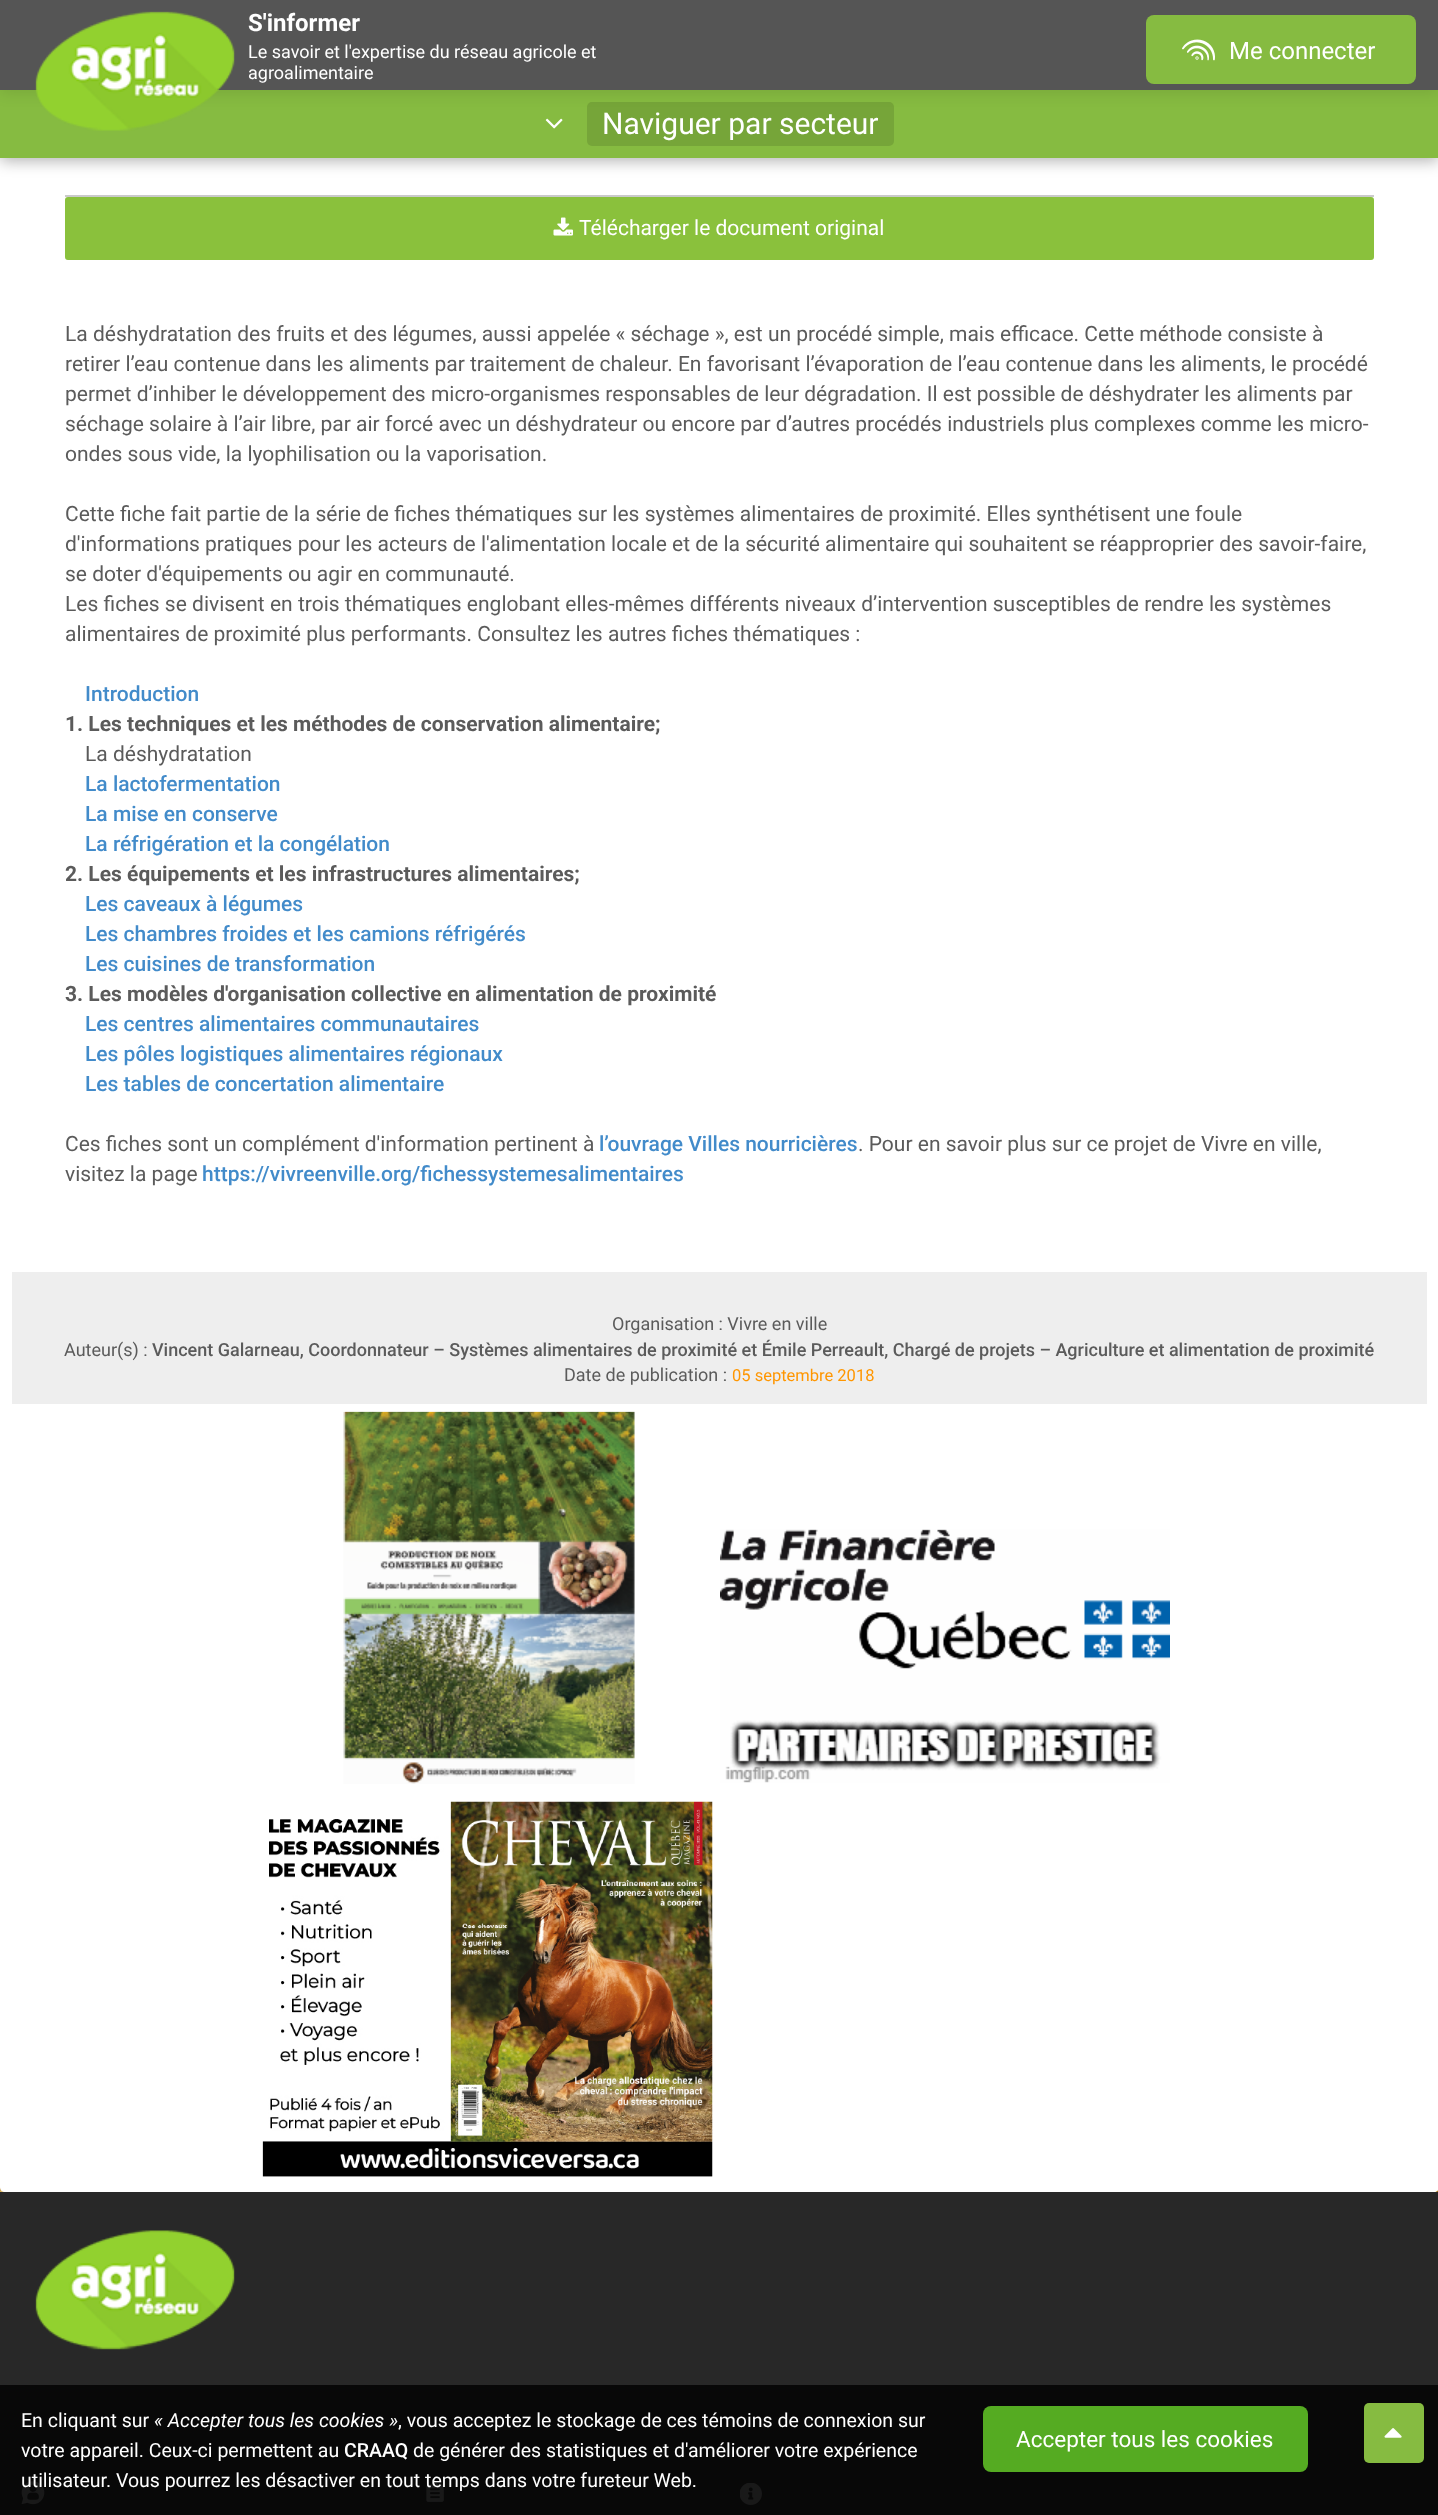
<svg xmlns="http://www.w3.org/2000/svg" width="1438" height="2515">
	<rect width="100%" height="100%" fill="#FFFFFF" />
	<image x="0" y="2187" width="1438" height="5" href="assets/img1.png" />
	<path d="M0-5H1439V2187C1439 2190 1437 2192 1434 2192H5C2 2192 0 2190 0 2187Z" fill="#FFFFFF" />
	<rect x="0" y="93" width="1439" height="68" fill="#000000" fill-opacity="0.3" filter="blur(7.5px)" />
	<rect x="0" y="90" width="1438" height="68" fill="#86BB41" />
	<rect x="587" y="102" width="307" height="44" rx="5" fill="#76A539" />
	<rect x="0" y="3" width="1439" height="90" fill="#000000" fill-opacity="0.1" filter="blur(7.5px)" />
	<rect x="0" y="0" width="1438" height="90" fill="#555555" />
	<image x="35" y="11" width="200" height="120" href="assets/img2.png" />
	<text x="248" y="31" font-family="Roboto" font-size="24" font-weight="700" fill="#FFFFFF">S'informer</text>
	<g font-family="Roboto" font-size="18" fill="#FFFFFF">
		<text x="248" y="58">Le savoir et l'expertise du réseau agricole et</text>
		<text x="248" y="79">agroalimentaire</text>
	</g>
	<rect x="1146" y="15" width="270" height="69" rx="8" fill="#86BB41" />
	<image x="1182" y="39" width="33" height="22" href="assets/img3.png" />
	<text x="1229" y="59" font-family="Roboto" font-size="24" fill="#FFFFFF">Me connecter</text>
	<image x="545" y="118" width="18" height="11" href="assets/img4.png" />
	<text x="602" y="134" font-family="Roboto" font-size="30" fill="#FFFFFF">Naviguer par secteur</text>
	<rect x="65" y="195" width="1309" height="2" fill="#CACACA" />
	<rect x="66" y="198" width="1307" height="61" rx="2" fill="#8AC13C" stroke="#8AC13C" stroke-width="2" />
	<image x="553" y="217" width="20" height="19" href="assets/img5.png" />
	<text x="579" y="235" font-family="Roboto" font-size="21" fill="#FFFFFF">Télécharger le document original</text>
	<g font-family="Roboto" font-size="21" fill="#5B5B5B">
		<text x="65" y="341">La déshydratation des fruits et des légumes, aussi appelée « séchage », est un procédé simple, mais efficace. Cette méthode consiste à</text>
		<text x="65" y="371">retirer l’eau contenue dans les aliments par traitement de chaleur. En favorisant l’évaporation de l’eau contenue dans les aliments, le procédé</text>
		<text x="65" y="401">permet d’inhiber le développement des micro-organismes responsables de leur dégradation. Il est possible de déshydrater les aliments par</text>
		<text x="65" y="431">séchage solaire à l’air libre, par air forcé avec un déshydrateur ou encore par d’autres procédés industriels plus complexes comme les micro-</text>
		<text x="65" y="461">ondes sous vide, la lyophilisation ou la vaporisation.</text>
		<text x="65" y="521">Cette fiche fait partie de la série de fiches thématiques sur les systèmes alimentaires de proximité. Elles synthétisent une foule</text>
		<text x="65" y="551">d'informations pratiques pour les acteurs de l'alimentation locale et de la sécurité alimentaire qui souhaitent se réapproprier des savoir-faire,</text>
		<text x="65" y="581">se doter d'équipements ou agir en communauté.</text>
		<text x="65" y="611">Les fiches se divisent en trois thématiques englobant elles-mêmes différents niveaux d’intervention susceptibles de rendre les systèmes</text>
		<text x="65" y="641">alimentaires de proximité plus performants. Consultez les autres fiches thématiques :</text>
	</g>
	<text x="85" y="701" font-family="Roboto" font-size="21" font-weight="500" fill="#428BCA">Introduction</text>
	<text x="65" y="731" font-family="Roboto" font-size="21" font-weight="700" fill="#5B5B5B">1. Les techniques et les méthodes de conservation alimentaire;</text>
	<text x="85" y="761" font-family="Roboto" font-size="21" fill="#5B5B5B">La déshydratation</text>
	<g font-family="Roboto" font-size="21" font-weight="500" fill="#428BCA">
		<text x="85" y="791">La lactofermentation</text>
		<text x="85" y="821">La mise en conserve</text>
		<text x="85" y="851">La réfrigération et la congélation</text>
	</g>
	<text x="65" y="881" font-family="Roboto" font-size="21" font-weight="700" fill="#5B5B5B">2. Les équipements et les infrastructures alimentaires;</text>
	<g font-family="Roboto" font-size="21" font-weight="500" fill="#428BCA">
		<text x="85" y="911">Les caveaux à légumes</text>
		<text x="85" y="941">Les chambres froides et les camions réfrigérés</text>
		<text x="85" y="971">Les cuisines de transformation</text>
	</g>
	<text x="65" y="1001" font-family="Roboto" font-size="21" font-weight="700" fill="#5B5B5B">3. Les modèles d'organisation collective en alimentation de proximité</text>
	<g font-family="Roboto" font-size="21" font-weight="500" fill="#428BCA">
		<text x="85" y="1031">Les centres alimentaires communautaires</text>
		<text x="85" y="1061">Les pôles logistiques alimentaires régionaux</text>
		<text x="85" y="1091">Les tables de concertation alimentaire</text>
	</g>
	<text x="65" y="1151" font-family="Roboto" font-size="21" fill="#5B5B5B">Ces fiches sont un complément d'information pertinent à</text>
	<text x="599" y="1151" font-family="Roboto" font-size="21" font-weight="500" fill="#428BCA">l’ouvrage Villes nourricières</text>
	<g font-family="Roboto" font-size="21" fill="#5B5B5B">
		<text x="858" y="1151">. Pour en savoir plus sur ce projet de Vivre en ville,</text>
		<text x="65" y="1181">visitez la page</text>
	</g>
	<text x="202" y="1181" font-family="Roboto" font-size="21" font-weight="500" fill="#428BCA">https://vivreenville.org/fichessystemesalimentaires</text>
	<rect x="12" y="1272" width="1415" height="132" fill="#EEEEEE" />
	<g font-family="Roboto" font-size="18" fill="#5B5B5B">
		<text x="612" y="1330">Organisation : Vivre en ville</text>
		<text x="64" y="1356">Auteur(s) :</text>
	</g>
	<text x="152" y="1356" font-family="Roboto" font-size="18" font-weight="500" fill="#5B5B5B">Vincent Galarneau, Coordonnateur – Systèmes alimentaires de proximité et Émile Perreault, Chargé de projets – Agriculture et alimentation de proximité</text>
	<text x="564" y="1381" font-family="Roboto" font-size="18" fill="#5B5B5B">Date de publication :</text>
	<text x="732" y="1381" font-family="Roboto" font-size="16.5" fill="#FF9600">05 septembre 2018</text>
	<image x="343" y="1411" width="292" height="373" href="assets/img6.png" />
	<image x="720" y="1529" width="450" height="254" href="assets/img7.png" />
	<image x="262" y="1801" width="451" height="376" href="assets/img8.png" />
	<rect x="0" y="2192" width="1438" height="323" fill="#282828" />
	<image x="35" y="2230" width="200" height="120" href="assets/img9.png" />
	<image x="21" y="2481" width="24" height="24" href="assets/img10.png" />
	<image x="426" y="2483" width="18" height="19" href="assets/img11.png" />
	<image x="740" y="2483" width="22" height="22" href="assets/img12.png" />
	<rect x="0" y="2385" width="1438" height="130" fill="#000000" fill-opacity="0.8" />
	<text x="21" y="2427" font-family="Roboto" font-size="19.5" fill="#FFFFFF">En cliquant sur</text>
	<text x="154" y="2427" font-family="Roboto" font-size="19.5" font-style="italic" fill="#FFFFFF">« Accepter tous les cookies »</text>
	<g font-family="Roboto" font-size="19.5" fill="#FFFFFF">
		<text x="398" y="2427">, vous acceptez le stockage de ces témoins de connexion sur</text>
		<text x="21" y="2457">votre appareil. Ceux-ci permettent au</text>
	</g>
	<text x="344" y="2457" font-family="Roboto" font-size="19.5" font-weight="500" fill="#FFFFFF">CRAAQ</text>
	<g font-family="Roboto" font-size="19.5" fill="#FFFFFF">
		<text x="413" y="2457">de générer des statistiques et d'améliorer votre expérience</text>
		<text x="21" y="2487">utilisateur. Vous pourrez les désactiver en tout temps dans votre fureteur Web.</text>
	</g>
	<rect x="983" y="2406" width="325" height="66" rx="8" fill="#55AB22" />
	<text x="1016" y="2447" font-family="Roboto" font-size="22.5" fill="#FFFFFF">Accepter tous les cookies</text>
	<rect x="1364" y="2403" width="60" height="60" rx="5" fill="#86BB41" />
	<image x="1384" y="2428" width="18" height="10" href="assets/img13.png" />
</svg>
